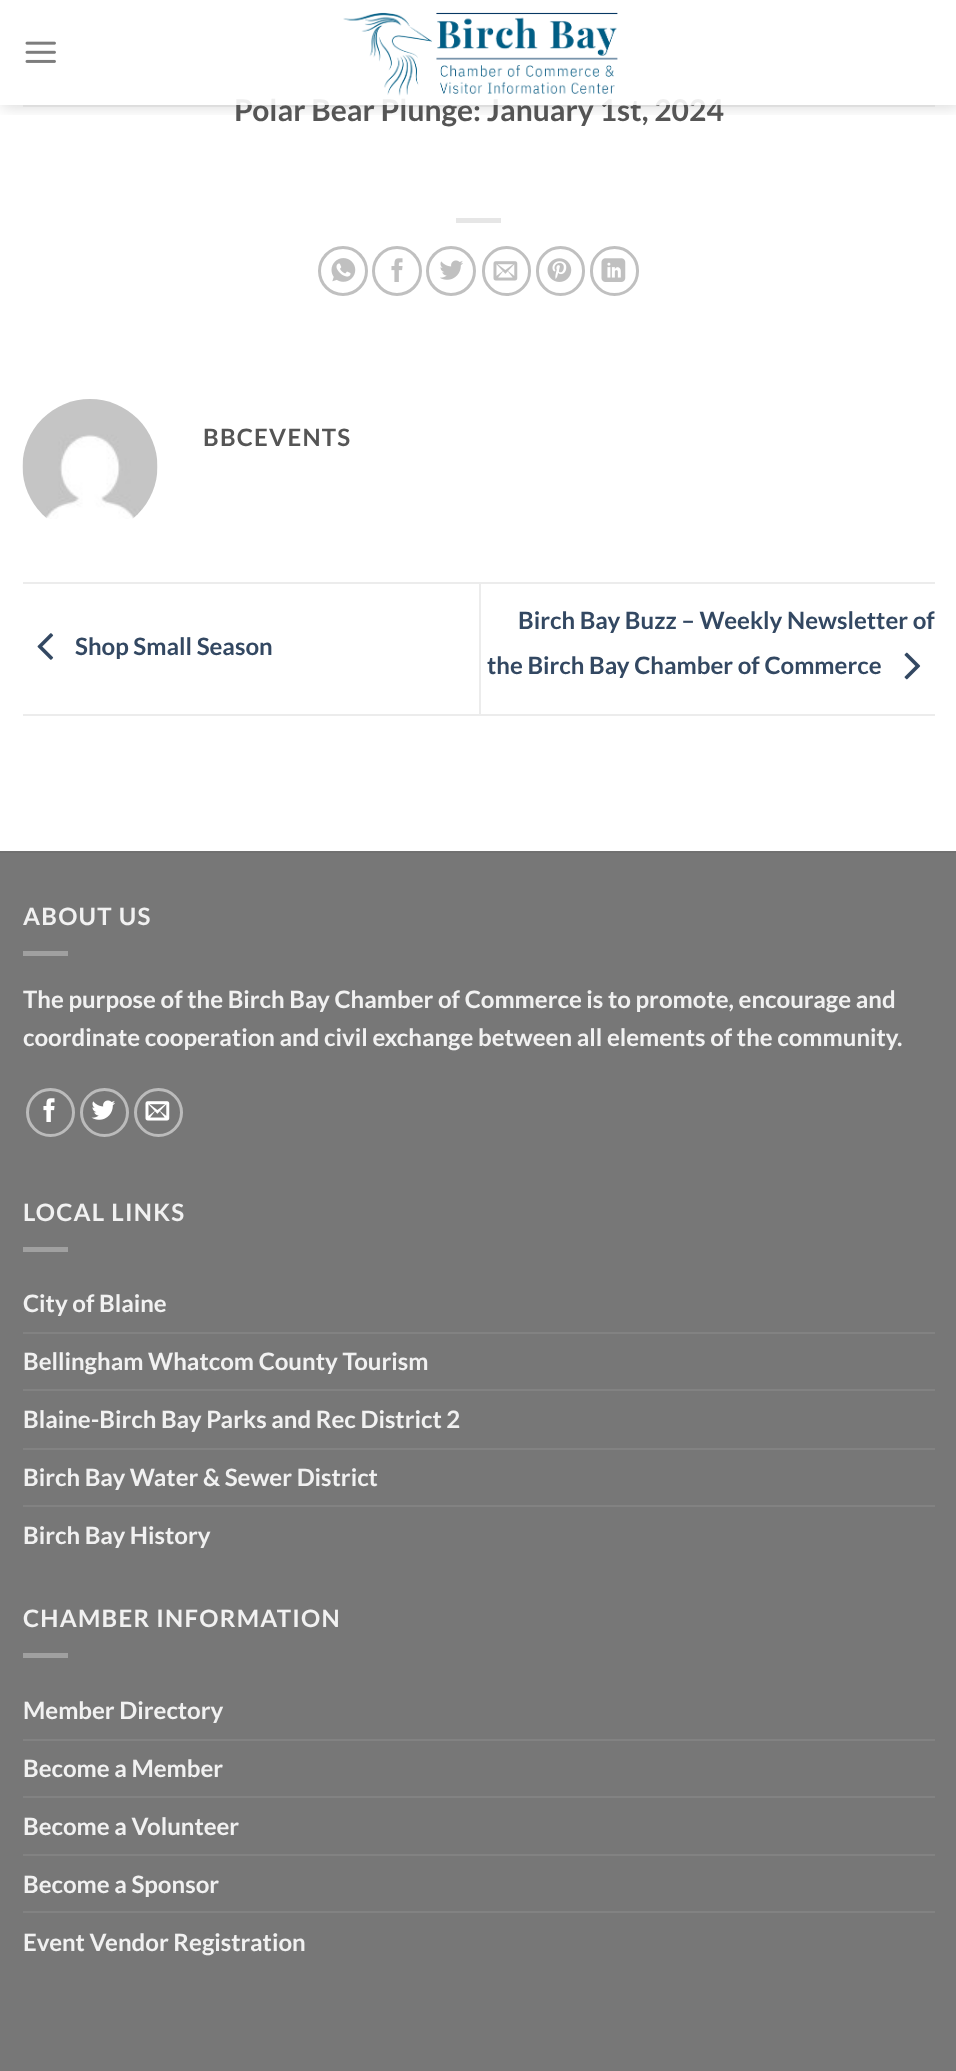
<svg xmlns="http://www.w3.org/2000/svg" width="956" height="2071">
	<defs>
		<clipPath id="clip1"><rect x="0" y="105" width="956" height="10" /></clipPath>
	</defs>
	<rect width="100%" height="100%" fill="#FFFFFF" />
	<g clip-path="url(#clip1)">
		<rect x="2" y="2" width="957" height="105" fill="#000000" fill-opacity="0.15" filter="blur(7.5px)" />
	</g>
	<image x="25" y="41" width="31" height="22" href="assets/img1.png" />
	<image x="343" y="12" width="275" height="84" href="assets/img2.png" />
	<rect x="23" y="105" width="912" height="2" fill="#777777" fill-opacity="0.1" />
	<text x="234" y="121" font-family="Lato" font-size="30" font-weight="700" fill="#555555">Polar Bear Plunge: January 1st, 2024</text>
	<rect x="235" y="98" width="486" height="7" fill="#FFFFFF" fill-opacity="0.9" />
	<rect x="456" y="218" width="45" height="5" fill="#E6E6E6" />
	<circle cx="343" cy="271" r="23.5" fill="none" stroke="#C0C0C0" stroke-width="3" />
	<image x="331" y="258" width="25" height="24" href="assets/img3.png" />
	<circle cx="397" cy="271" r="23.5" fill="none" stroke="#C0C0C0" stroke-width="3" />
	<image x="391" y="258" width="12" height="24" href="assets/img4.png" />
	<circle cx="451" cy="271" r="23.5" fill="none" stroke="#C0C0C0" stroke-width="3" />
	<image x="440" y="260" width="23" height="20" href="assets/img5.png" />
	<rect x="483.5" y="247.5" width="46" height="47" rx="23" fill="none" stroke="#C0C0C0" stroke-width="3" />
	<image x="493" y="261" width="25" height="20" href="assets/img6.png" />
	<rect x="537.5" y="247.5" width="46" height="47" rx="23" fill="none" stroke="#C0C0C0" stroke-width="3" />
	<image x="547" y="258" width="25" height="24" href="assets/img7.png" />
	<rect x="591.5" y="247.5" width="46" height="47" rx="23" fill="none" stroke="#C0C0C0" stroke-width="3" />
	<image x="601" y="258" width="25" height="24" href="assets/img8.png" />
	<image x="22" y="399" width="136" height="120" href="assets/img9.png" />
	<text x="203" y="446" font-family="Lato" font-size="24" font-weight="700" letter-spacing="1.25" fill="#555555">BBCEVENTS</text>
	<rect x="23" y="582" width="912" height="2" fill="#ECECEC" />
	<rect x="23" y="714" width="912" height="2" fill="#ECECEC" />
	<image x="37" y="633" width="17" height="27" href="assets/img10.png" />
	<text x="75" y="655" font-family="Lato" font-size="24" font-weight="700" fill="#334862">Shop Small Season</text>
	<rect x="479" y="584" width="2" height="130" fill="#ECECEC" />
	<g font-family="Lato" font-size="24" font-weight="700" fill="#334862">
		<text x="518" y="629">Birch Bay Buzz – Weekly Newsletter of</text>
		<text x="487" y="674">the Birch Bay Chamber of Commerce</text>
	</g>
	<image x="904" y="652" width="17" height="28" href="assets/img11.png" />
	<rect x="0" y="853" width="956" height="1218" fill="#777777" />
	<rect x="0" y="851" width="956" height="2" fill="#717171" />
	<text x="23" y="925" font-family="Lato" font-size="24" font-weight="700" letter-spacing="1.25" fill="#F1F1F1">ABOUT US</text>
	<rect x="23" y="951" width="45" height="5" fill="#A0A0A0" />
	<g font-family="Lato" font-size="24" font-weight="700" fill="#F1F1F1">
		<text x="23" y="1008">The purpose of the Birch Bay Chamber of Commerce is to promote, encourage and</text>
		<text x="23" y="1046">coordinate cooperation and civil exchange between all elements of the community.</text>
	</g>
	<circle cx="50.5" cy="1112.5" r="23" fill="none" stroke="#BBBBBB" stroke-width="3" />
	<image x="43" y="1098" width="12" height="24" href="assets/img12.png" />
	<circle cx="104.5" cy="1112.5" r="23" fill="none" stroke="#BBBBBB" stroke-width="3" />
	<image x="91" y="1100" width="24" height="20" href="assets/img13.png" />
	<circle cx="158.5" cy="1112.5" r="23" fill="none" stroke="#BBBBBB" stroke-width="3" />
	<image x="145" y="1101" width="25" height="20" href="assets/img14.png" />
	<text x="23" y="1221" font-family="Lato" font-size="24" font-weight="700" letter-spacing="1.25" fill="#F1F1F1">LOCAL LINKS</text>
	<rect x="23" y="1247" width="45" height="5" fill="#A0A0A0" />
	<text x="23" y="1312" font-family="Lato" font-size="24" font-weight="700" fill="#F1F1F1">City of Blaine</text>
	<rect x="23" y="1332" width="912" height="2" fill="#828282" />
	<text x="23" y="1370" font-family="Lato" font-size="24" font-weight="700" fill="#F1F1F1">Bellingham Whatcom County Tourism</text>
	<rect x="23" y="1389" width="912" height="2" fill="#828282" />
	<text x="23" y="1428" font-family="Lato" font-size="24" font-weight="700" fill="#F1F1F1">Blaine-Birch Bay Parks and Rec District 2</text>
	<rect x="23" y="1448" width="912" height="2" fill="#828282" />
	<text x="23" y="1486" font-family="Lato" font-size="24" font-weight="700" fill="#F1F1F1">Birch Bay Water &amp; Sewer District</text>
	<rect x="23" y="1505" width="912" height="2" fill="#828282" />
	<text x="23" y="1544" font-family="Lato" font-size="24" font-weight="700" fill="#F1F1F1">Birch Bay History</text>
	<text x="23" y="1627" font-family="Lato" font-size="24" font-weight="700" letter-spacing="1.25" fill="#F1F1F1">CHAMBER INFORMATION</text>
	<rect x="23" y="1653" width="45" height="5" fill="#A0A0A0" />
	<text x="23" y="1719" font-family="Lato" font-size="24" font-weight="700" fill="#F1F1F1">Member Directory</text>
	<rect x="23" y="1739" width="912" height="2" fill="#828282" />
	<text x="23" y="1777" font-family="Lato" font-size="24" font-weight="700" fill="#F1F1F1">Become a Member</text>
	<rect x="23" y="1796" width="912" height="2" fill="#828282" />
	<text x="23" y="1835" font-family="Lato" font-size="24" font-weight="700" fill="#F1F1F1">Become a Volunteer</text>
	<rect x="23" y="1854" width="912" height="2" fill="#828282" />
	<text x="23" y="1893" font-family="Lato" font-size="24" font-weight="700" fill="#F1F1F1">Become a Sponsor</text>
	<rect x="23" y="1911" width="912" height="2" fill="#828282" />
	<text x="23" y="1951" font-family="Lato" font-size="24" font-weight="700" fill="#F1F1F1">Event Vendor Registration</text>
</svg>
